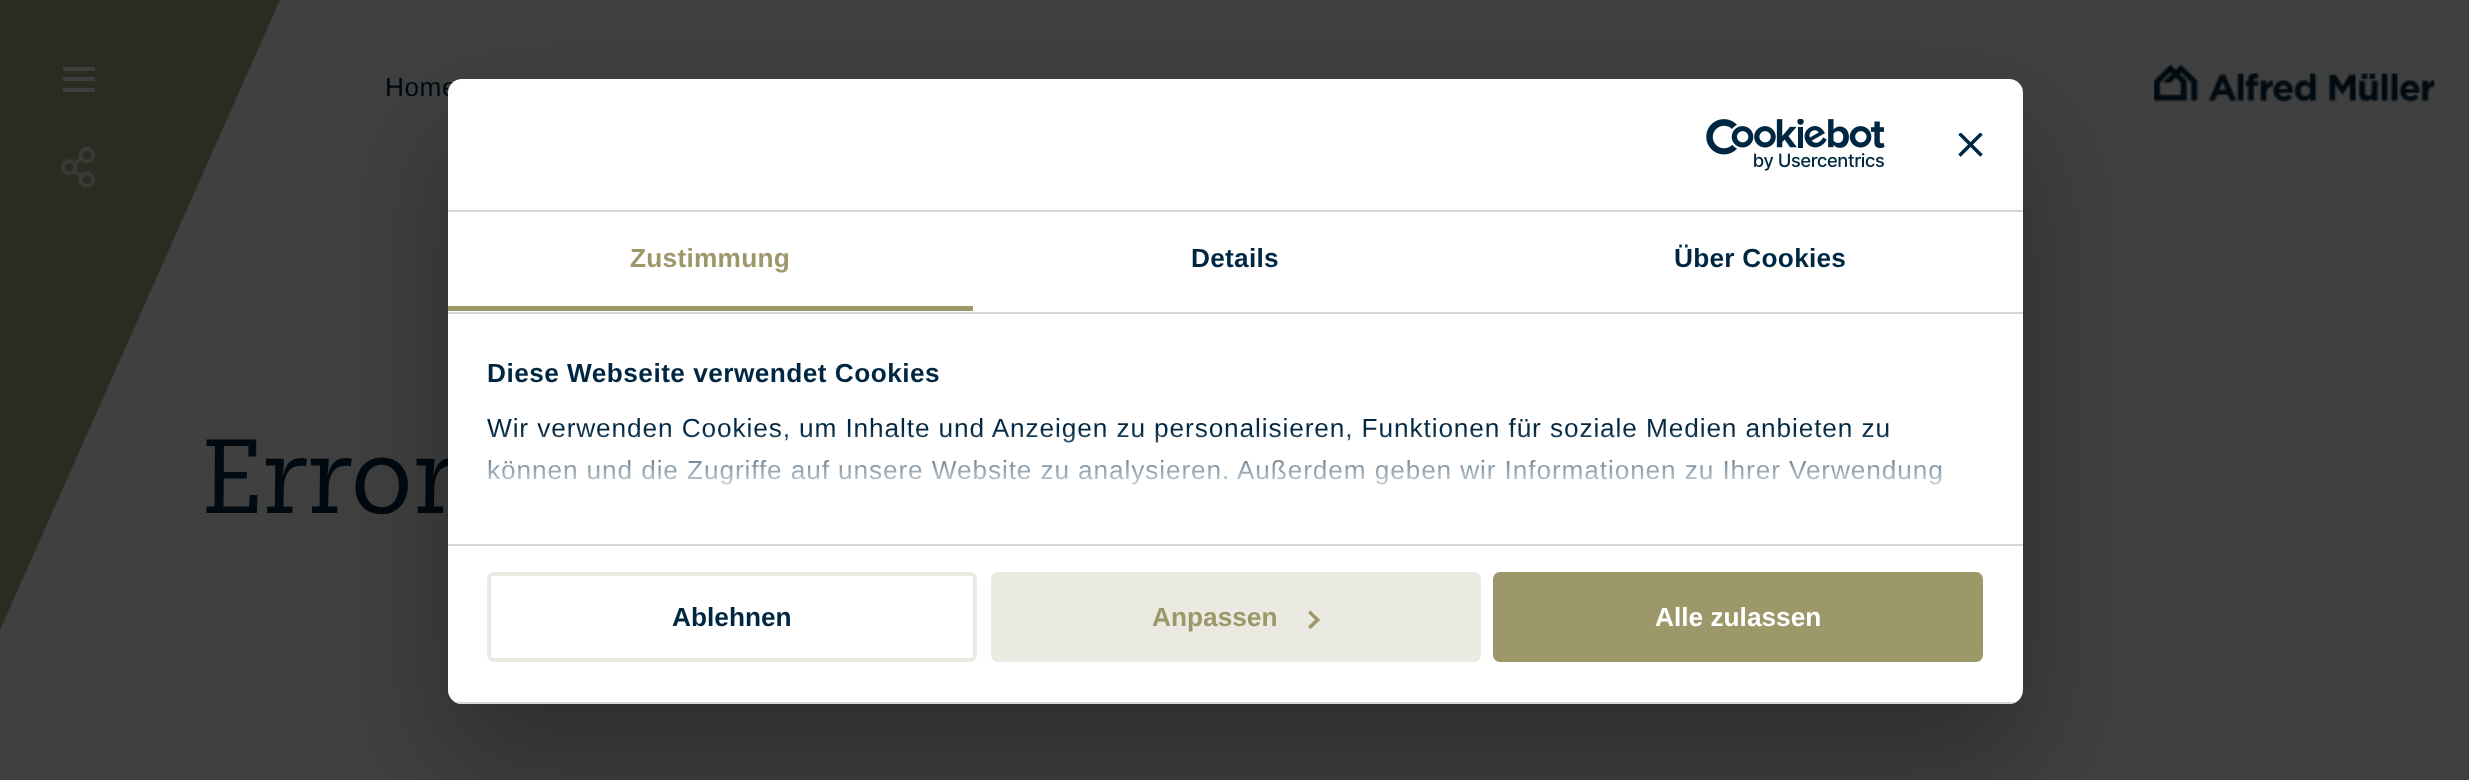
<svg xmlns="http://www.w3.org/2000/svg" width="2469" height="780">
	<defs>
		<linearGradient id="g1" gradientUnits="userSpaceOnUse" x1="1217" y1="544" x2="1217" y2="428"><stop offset="0" stop-color="#FFFFFF" /><stop offset="0.5" stop-color="#FFFFFF" stop-opacity="0.8" /><stop offset="1" stop-color="#FFFFFF" stop-opacity="0" /></linearGradient>
		<clipPath id="clip1"><rect x="448" y="79" width="1575" height="625" rx="14" /></clipPath>
	</defs>
	<rect width="100%" height="100%" fill="#404040" />
	<text x="202" y="513" font-family="'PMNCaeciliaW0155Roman'" font-size="105" fill="#000A10">Error</text>
	<path d="M0 0H280L0 630Z" fill="#2C2B22" />
	<rect x="63" y="67" width="32" height="4" fill="#3E3E3D" />
	<rect x="63" y="77" width="32" height="4" fill="#3E3E3D" />
	<rect x="63" y="88" width="32" height="4" fill="#3E3E3D" />
	<image x="61" y="147" width="35" height="42" href="assets/img1.png" />
	<image x="2154" y="64" width="281" height="38" href="assets/img2.png" />
	<text x="385" y="96" font-family="Liberation Sans" font-size="26.25" letter-spacing="0.5" fill="#000A10">Home</text>
	<rect x="448" y="135" width="1575" height="625" rx="14" fill="#000000" fill-opacity="0.3" filter="blur(59.5px)" />
	<rect x="448" y="79" width="1575" height="625" rx="14" fill="#FFFFFF" />
	<rect x="448" y="210" width="1575" height="2" fill="#D6D6D6" />
	<image x="1706" y="119" width="179" height="52" href="assets/img3.png" />
	<image x="1958" y="133" width="25" height="24" href="assets/img4.png" />
	<rect x="448" y="312" width="1575" height="2" fill="#D6D6D6" />
	<rect x="448" y="306" width="525" height="5" fill="#9D9869" />
	<text x="630" y="267" font-family="Liberation Sans" font-size="26.25" font-weight="700" letter-spacing="0.25" fill="#9D9869">Zustimmung</text>
	<g font-family="Liberation Sans" font-size="26.25" font-weight="700" letter-spacing="0.25" fill="#002741">
		<text x="1191" y="267">Details</text>
		<text x="1674" y="267">Über Cookies</text>
	</g>
	<rect x="448" y="544" width="1575" height="2" fill="#D6D6D6" />
	<text x="487" y="382" font-family="Liberation Sans" font-size="26.25" font-weight="700" letter-spacing="0.45" fill="#002741">Diese Webseite verwendet Cookies</text>
	<g font-family="Liberation Sans" font-size="26.25" letter-spacing="0.88" fill="#002741">
		<text x="487" y="437">Wir verwenden Cookies, um Inhalte und Anzeigen zu personalisieren, Funktionen für soziale Medien anbieten zu</text>
		<text x="487" y="479">können und die Zugriffe auf unsere Website zu analysieren. Außerdem geben wir Informationen zu Ihrer Verwendung</text>
	</g>
	<rect x="488" y="430" width="1453" height="55" fill="url(#g1)" />
	<g clip-path="url(#clip1)">
		<rect x="448" y="702" width="1575" height="2" fill="#D6D6D6" />
	</g>
	<rect x="489" y="574" width="486" height="86" rx="5" fill="none" stroke="#EAE9E2" stroke-width="4" />
	<text x="672" y="626" font-family="Liberation Sans" font-size="26.25" font-weight="700" fill="#002741">Ablehnen</text>
	<rect x="993" y="574" width="486" height="86" rx="5" fill="#EAE9E2" stroke="#EAE9E2" stroke-width="4" />
	<text x="1152" y="626" font-family="Liberation Sans" font-size="26.25" font-weight="700" fill="#9D9869">Anpassen</text>
	<path d="M1310.5 610.5L1320 620L1317.5 622L1308 613Z" fill="#9D9869" />
	<path d="M1317.5 617.5L1320 620L1310.5 629L1308 626.5Z" fill="#9D9869" />
	<rect x="1495" y="574" width="486" height="86" rx="5" fill="#9D9869" stroke="#9D9869" stroke-width="4" />
	<text x="1655" y="626" font-family="Liberation Sans" font-size="26.25" font-weight="700" fill="#FFFFFF">Alle zulassen</text>
</svg>
